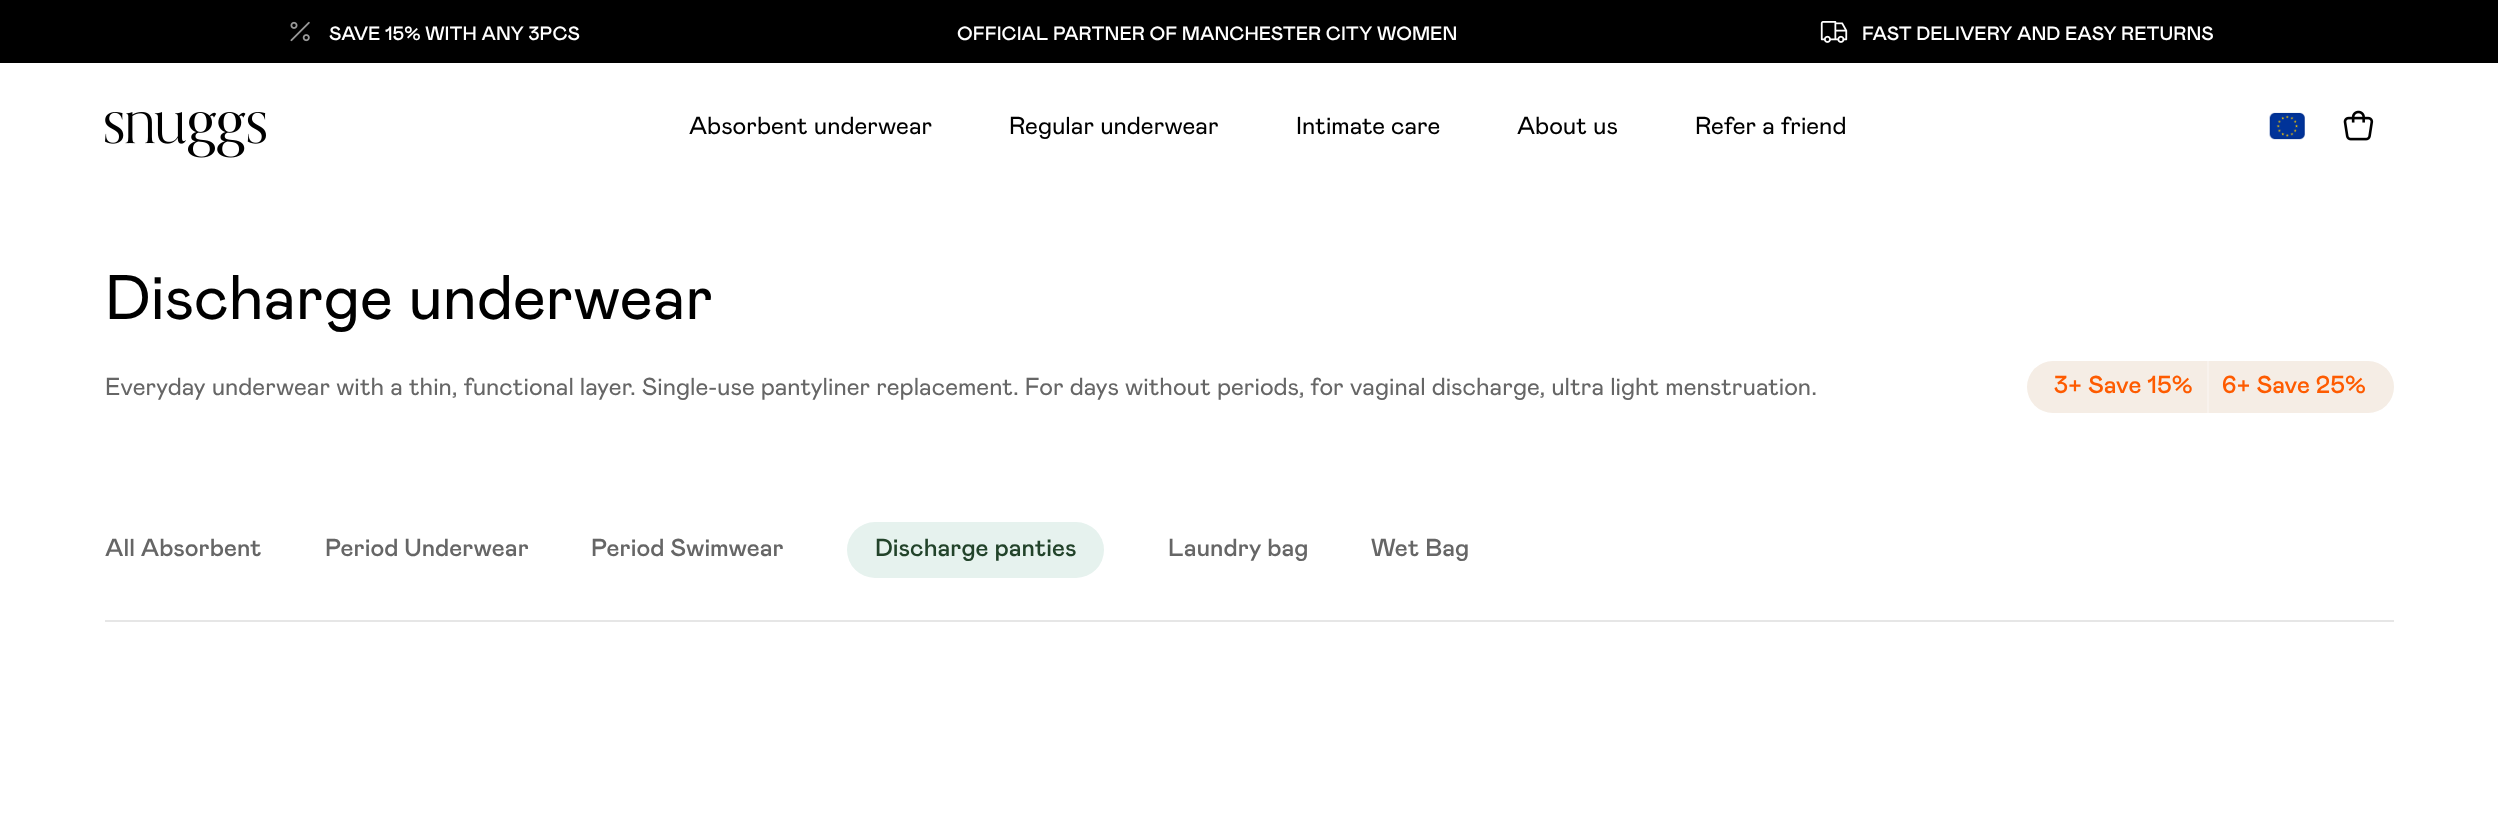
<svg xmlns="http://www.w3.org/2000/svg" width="2498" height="839">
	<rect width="100%" height="100%" fill="#FFFFFF" />
	<rect x="0" y="0" width="2498" height="63" fill="#000000" />
	<image x="290" y="21" width="20" height="21" href="assets/img1.png" />
	<g font-family="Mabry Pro" font-size="19.25" font-weight="500" fill="#FFFFFF">
		<text x="329" y="40">SAVE 15% WITH ANY 3PCS</text>
		<text x="957" y="40">OFFICIAL PARTNER OF MANCHESTER CITY WOMEN</text>
	</g>
	<image x="1820" y="21" width="28" height="22" href="assets/img2.png" />
	<text x="1862" y="40" font-family="Mabry Pro" font-size="19.25" font-weight="500" fill="#FFFFFF">FAST DELIVERY AND EASY RETURNS</text>
	<image x="105" y="112" width="161" height="46" href="assets/img3.png" />
	<g font-family="Mabry Pro" font-size="24.5" fill="#000000">
		<text x="689" y="134">Absorbent underwear</text>
		<text x="1009" y="134">Regular underwear</text>
		<text x="1296" y="134">Intimate care</text>
		<text x="1517" y="134">About us</text>
		<text x="1695" y="134">Refer a friend</text>
	</g>
	<image x="2269" y="112" width="36" height="28" href="assets/img4.png" />
	<image x="2343" y="110" width="31" height="31" href="assets/img5.png" />
	<text x="105" y="319" font-family="Mabry Pro" font-size="63" fill="#000000">Discharge underwear</text>
	<text x="105" y="395" font-family="Mabry Pro" font-size="24.5" fill="#666666">Everyday underwear with a thin, functional layer. Single-use pantyliner replacement. For days without periods, for vaginal discharge, ultra light menstruation.</text>
	<rect x="2027" y="361" width="367" height="52" rx="26" fill="#F5EDE5" />
	<text x="2054" y="393" font-family="Mabry Pro" font-size="24.5" font-weight="500" fill="#FE5B00">3+ Save 15%</text>
	<rect x="2207" y="361" width="2" height="52" fill="#F8F2ED" />
	<text x="2222" y="393" font-family="Mabry Pro" font-size="24.5" font-weight="500" fill="#FE5B00">6+ Save 25%</text>
	<g font-family="Mabry Pro" font-size="24.5" font-weight="500" fill="#666666">
		<text x="105" y="556">All Absorbent</text>
		<text x="325" y="556">Period Underwear</text>
		<text x="591" y="556">Period Swimwear</text>
	</g>
	<rect x="847" y="522" width="257" height="56" rx="28" fill="#E6F2EE" />
	<text x="875" y="556" font-family="Mabry Pro" font-size="24.5" font-weight="500" fill="#22432A">Discharge panties</text>
	<g font-family="Mabry Pro" font-size="24.5" font-weight="500" fill="#666666">
		<text x="1168" y="556">Laundry bag</text>
		<text x="1371" y="556">Wet Bag</text>
	</g>
	<rect x="105" y="620" width="2289" height="2" fill="#E6E6E6" />
</svg>
